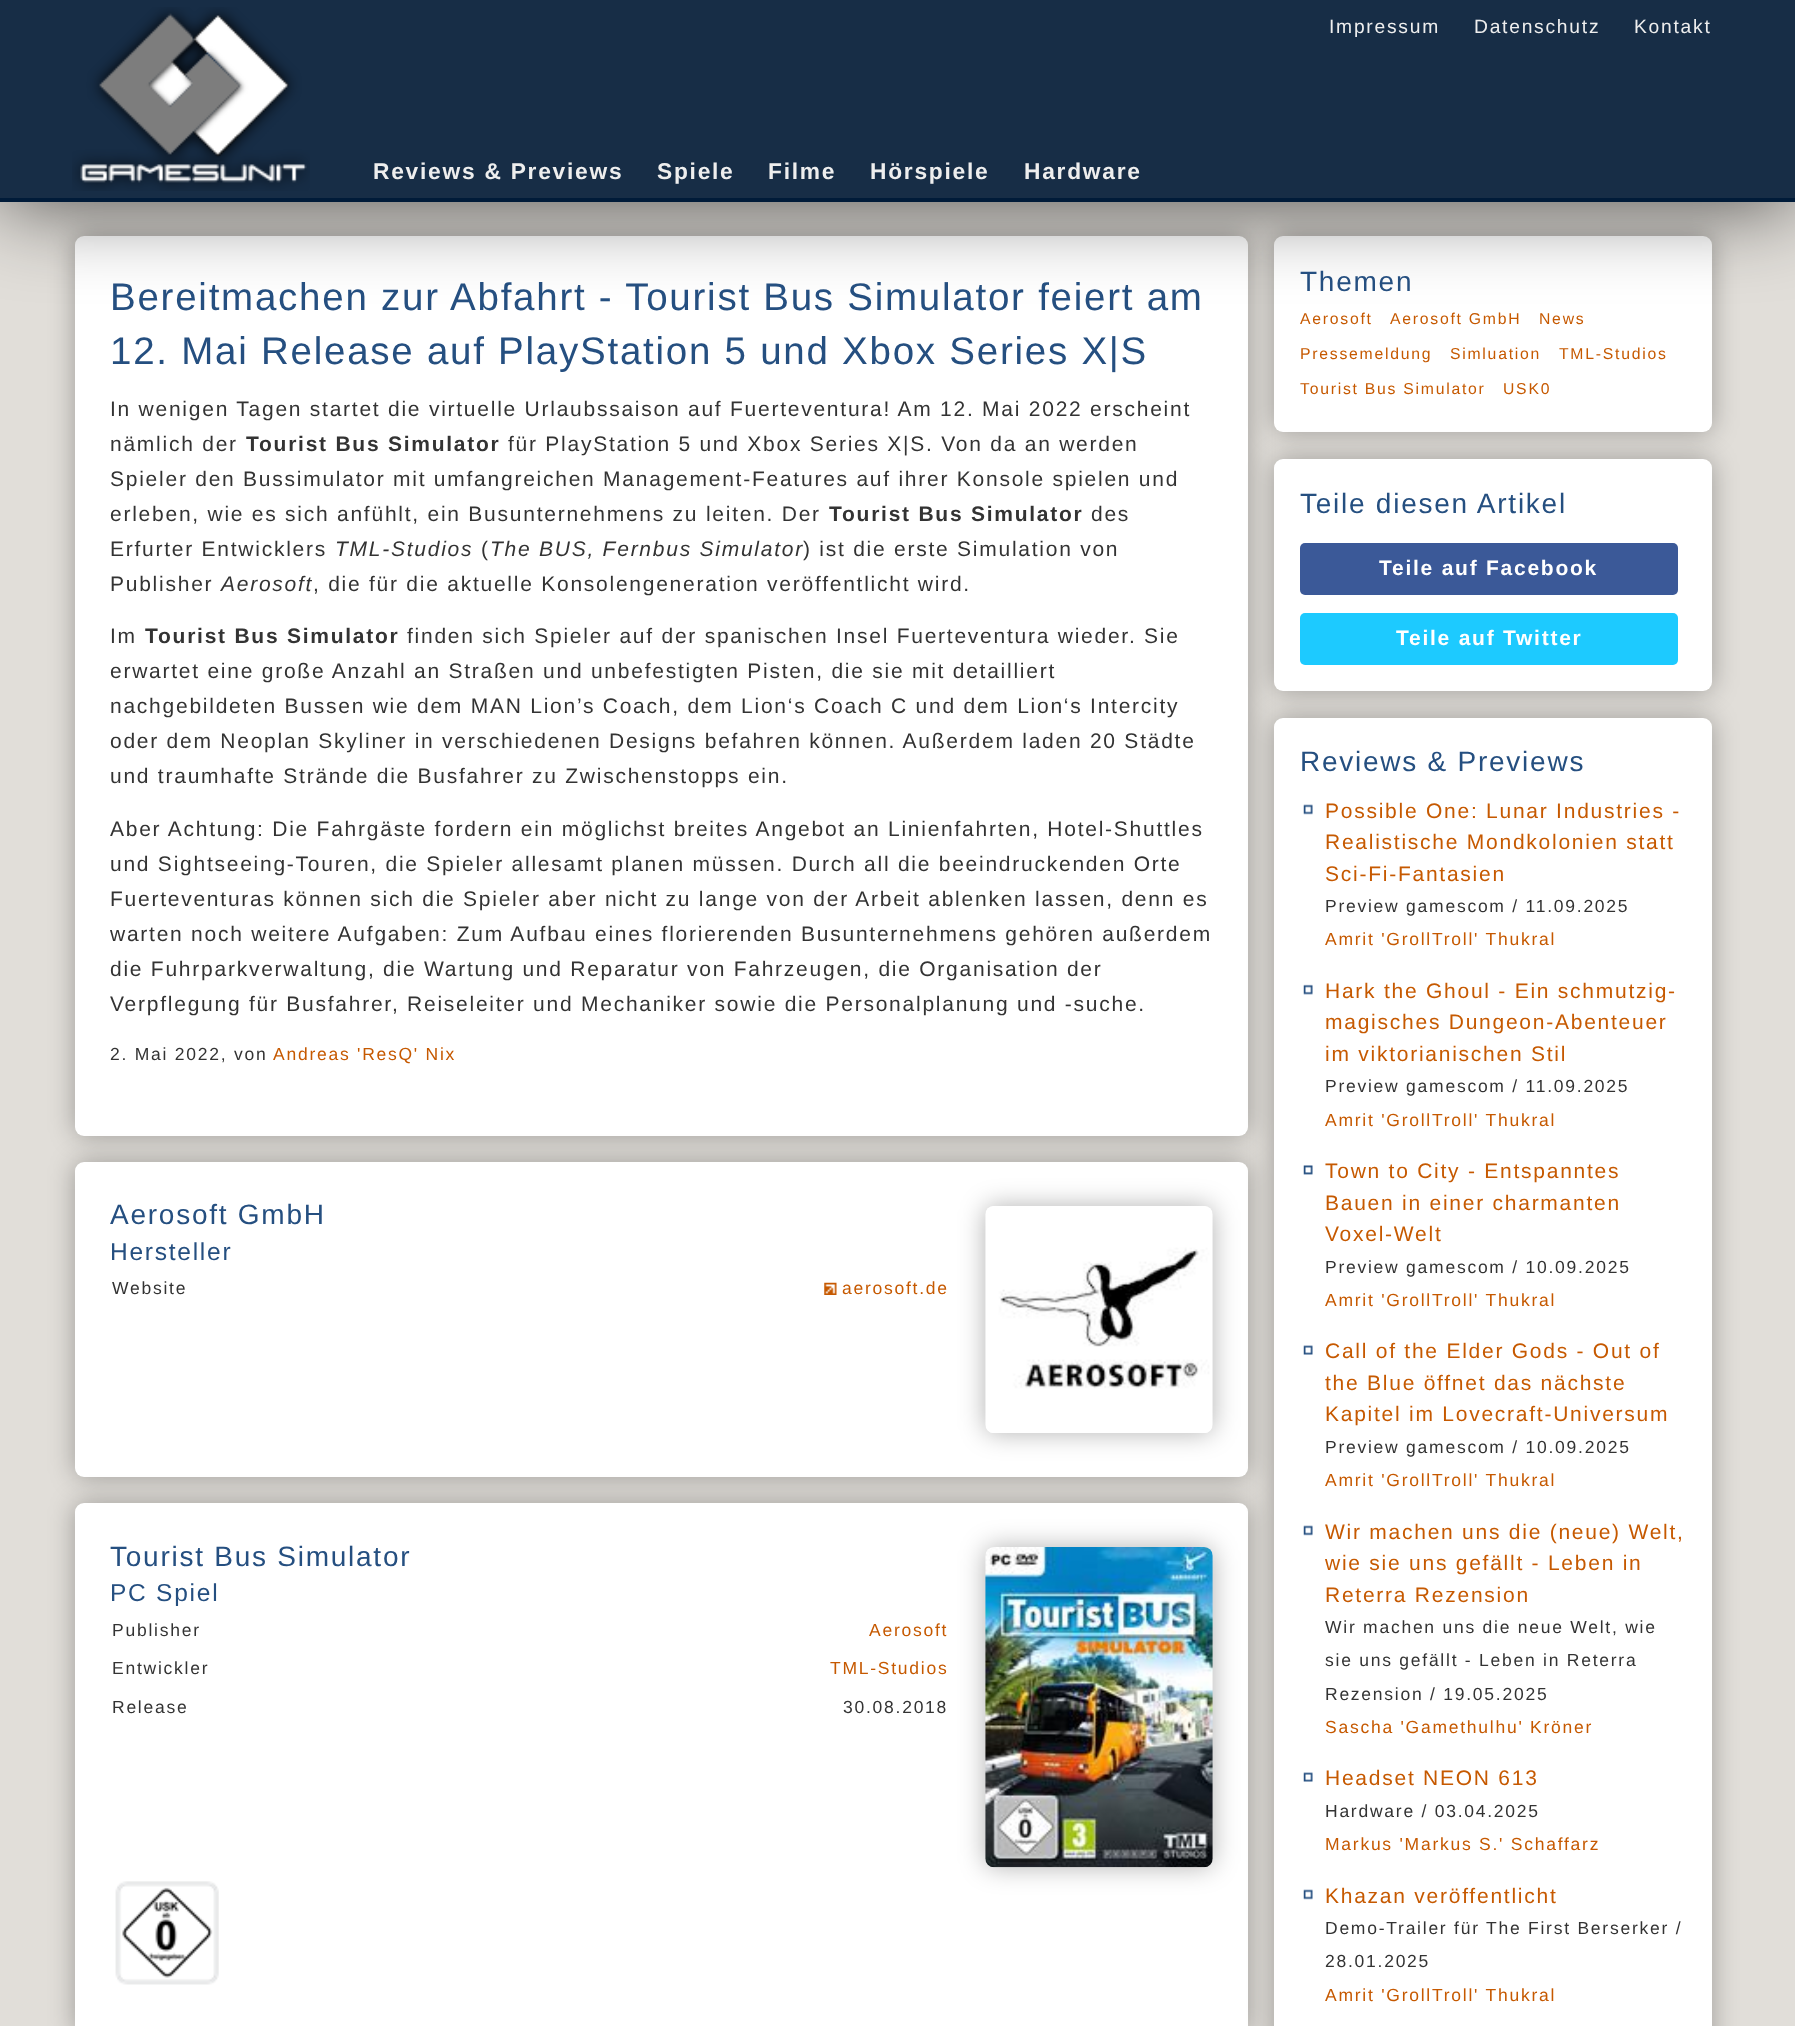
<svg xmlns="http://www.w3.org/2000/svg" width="1795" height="2026">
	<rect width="100%" height="100%" fill="#E1DED9" />
	<rect x="75" y="236" width="1173" height="900" rx="9" fill="#000000" fill-opacity="0.3" filter="blur(13px)" />
	<rect x="75" y="236" width="1173" height="900" rx="9" fill="#FFFFFF" />
	<rect x="1274" y="236" width="438" height="196" rx="9" fill="#000000" fill-opacity="0.3" filter="blur(13px)" />
	<rect x="1274" y="236" width="438" height="196" rx="9" fill="#FFFFFF" />
	<rect x="0" y="0" width="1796" height="201" fill="#000000" fill-opacity="0.7" filter="blur(44px)" />
	<rect x="0" y="0" width="1795" height="198" fill="#172D46" />
	<rect x="0" y="198" width="1795" height="4" fill="#001B39" />
	<image x="72" y="7" width="238" height="184" href="assets/img1.png" />
	<g font-family="Liberation Sans" font-size="19.25" letter-spacing="1.75" fill="#EEEEEE">
		<text x="1329" y="33">Impressum</text>
		<text x="1474" y="33">Datenschutz</text>
		<text x="1634" y="33">Kontakt</text>
	</g>
	<g font-family="Liberation Sans" font-size="22.75" font-weight="700" letter-spacing="1.75" fill="#EEEEEE">
		<text x="373" y="179">Reviews &amp; Previews</text>
		<text x="657" y="179">Spiele</text>
		<text x="768" y="179">Filme</text>
		<text x="870" y="179">Hörspiele</text>
		<text x="1024" y="179">Hardware</text>
	</g>
	<g font-family="Liberation Sans" font-size="38.5" letter-spacing="1.75" fill="#254F80">
		<text x="110" y="310">Bereitmachen zur Abfahrt - Tourist Bus Simulator feiert am</text>
		<text x="110" y="364">12. Mai Release auf PlayStation 5 und Xbox Series X|S</text>
	</g>
	<g font-family="Liberation Sans" font-size="21" letter-spacing="1.75" fill="#333333">
		<text x="110" y="416">In wenigen Tagen startet die virtuelle Urlaubssaison auf Fuerteventura! Am 12. Mai 2022 erscheint</text>
		<text x="110" y="451">nämlich der</text>
	</g>
	<text x="246" y="451" font-family="Liberation Sans" font-size="21" font-weight="700" letter-spacing="1.75" fill="#333333">Tourist Bus Simulator</text>
	<g font-family="Liberation Sans" font-size="21" letter-spacing="1.75" fill="#333333">
		<text x="508" y="451">für PlayStation 5 und Xbox Series X|S. Von da an werden</text>
		<text x="110" y="486">Spieler den Bussimulator mit umfangreichen Management-Features auf ihrer Konsole spielen und</text>
		<text x="110" y="521">erleben, wie es sich anfühlt, ein Busunternehmens zu leiten. Der</text>
	</g>
	<text x="829" y="521" font-family="Liberation Sans" font-size="21" font-weight="700" letter-spacing="1.75" fill="#333333">Tourist Bus Simulator</text>
	<g font-family="Liberation Sans" font-size="21" letter-spacing="1.75" fill="#333333">
		<text x="1091" y="521">des</text>
		<text x="110" y="556">Erfurter Entwicklers</text>
	</g>
	<text x="335" y="556" font-family="Liberation Sans" font-size="21" font-style="italic" letter-spacing="1.75" fill="#333333">TML-Studios</text>
	<text x="481" y="556" font-family="Liberation Sans" font-size="21" letter-spacing="1.75" fill="#333333">(</text>
	<text x="490" y="556" font-family="Liberation Sans" font-size="21" font-style="italic" letter-spacing="1.75" fill="#333333">The BUS, Fernbus Simulator</text>
	<g font-family="Liberation Sans" font-size="21" letter-spacing="1.75" fill="#333333">
		<text x="803" y="556">) ist die erste Simulation von</text>
		<text x="110" y="591">Publisher</text>
	</g>
	<text x="221" y="591" font-family="Liberation Sans" font-size="21" font-style="italic" letter-spacing="1.75" fill="#333333">Aerosoft</text>
	<g font-family="Liberation Sans" font-size="21" letter-spacing="1.75" fill="#333333">
		<text x="313" y="591">, die für die aktuelle Konsolengeneration veröffentlicht wird.</text>
		<text x="110" y="643">Im</text>
	</g>
	<text x="145" y="643" font-family="Liberation Sans" font-size="21" font-weight="700" letter-spacing="1.75" fill="#333333">Tourist Bus Simulator</text>
	<g font-family="Liberation Sans" font-size="21" letter-spacing="1.75" fill="#333333">
		<text x="407" y="643">finden sich Spieler auf der spanischen Insel Fuerteventura wieder. Sie</text>
		<text x="110" y="678">erwartet eine große Anzahl an Straßen und unbefestigten Pisten, die sie mit detailliert</text>
		<text x="110" y="713">nachgebildeten Bussen wie dem MAN Lion’s Coach, dem Lion‘s Coach C und dem Lion‘s Intercity</text>
		<text x="110" y="748">oder dem Neoplan Skyliner in verschiedenen Designs befahren können. Außerdem laden 20 Städte</text>
		<text x="110" y="783">und traumhafte Strände die Busfahrer zu Zwischenstopps ein.</text>
		<text x="110" y="836">Aber Achtung: Die Fahrgäste fordern ein möglichst breites Angebot an Linienfahrten, Hotel-Shuttles</text>
		<text x="110" y="871">und Sightseeing-Touren, die Spieler allesamt planen müssen. Durch all die beeindruckenden Orte</text>
		<text x="110" y="906">Fuerteventuras können sich die Spieler aber nicht zu lange von der Arbeit ablenken lassen, denn es</text>
		<text x="110" y="941">warten noch weitere Aufgaben: Zum Aufbau eines florierenden Busunternehmens gehören außerdem</text>
		<text x="110" y="976">die Fuhrparkverwaltung, die Wartung und Reparatur von Fahrzeugen, die Organisation der</text>
		<text x="110" y="1011">Verpflegung für Busfahrer, Reiseleiter und Mechaniker sowie die Personalplanung und -suche.</text>
	</g>
	<text x="110" y="1060" font-family="Liberation Sans" font-size="17.5" letter-spacing="1.75" fill="#333333">2. Mai 2022, von</text>
	<text x="273" y="1060" font-family="Liberation Sans" font-size="17.5" letter-spacing="1.75" fill="#C65900">Andreas 'ResQ' Nix</text>
	<rect x="75" y="1162" width="1173" height="315" rx="9" fill="#000000" fill-opacity="0.3" filter="blur(13px)" />
	<rect x="75" y="1162" width="1173" height="315" rx="9" fill="#FFFFFF" />
	<text x="110" y="1224" font-family="Liberation Sans" font-size="28" letter-spacing="1.75" fill="#254F80">Aerosoft GmbH</text>
	<rect x="985" y="1206" width="228" height="227" rx="9" fill="#000000" fill-opacity="0.3" filter="blur(13px)" />
	<image x="985" y="1206" width="228" height="227" href="assets/img2.png" />
	<text x="110" y="1260" font-family="Liberation Sans" font-size="24.5" letter-spacing="1.75" fill="#254F80">Hersteller</text>
	<text x="112" y="1294" font-family="Liberation Sans" font-size="17.5" letter-spacing="1.75" fill="#333333">Website</text>
	<image x="824" y="1282" width="13" height="13" href="assets/img3.png" />
	<text x="842" y="1294" font-family="Liberation Sans" font-size="17.5" letter-spacing="1.75" fill="#C65900">aerosoft.de</text>
	<rect x="75" y="1503" width="1173" height="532" rx="9" fill="#000000" fill-opacity="0.3" filter="blur(13px)" />
	<rect x="75" y="1503" width="1173" height="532" rx="9" fill="#FFFFFF" />
	<text x="110" y="1566" font-family="Liberation Sans" font-size="28" letter-spacing="1.75" fill="#254F80">Tourist Bus Simulator</text>
	<rect x="985" y="1547" width="228" height="320" rx="9" fill="#000000" fill-opacity="0.3" filter="blur(13px)" />
	<image x="985" y="1547" width="228" height="321" href="assets/img4.png" />
	<text x="110" y="1601" font-family="Liberation Sans" font-size="24.5" letter-spacing="1.75" fill="#254F80">PC Spiel</text>
	<text x="112" y="1636" font-family="Liberation Sans" font-size="17.5" letter-spacing="1.75" fill="#333333">Publisher</text>
	<text x="869" y="1636" font-family="Liberation Sans" font-size="17.5" letter-spacing="1.75" fill="#C65900">Aerosoft</text>
	<text x="112" y="1674" font-family="Liberation Sans" font-size="17.5" letter-spacing="1.75" fill="#333333">Entwickler</text>
	<text x="830" y="1674" font-family="Liberation Sans" font-size="17.5" letter-spacing="1.75" fill="#C65900">TML-Studios</text>
	<g font-family="Liberation Sans" font-size="17.5" letter-spacing="1.75" fill="#333333">
		<text x="112" y="1713">Release</text>
		<text x="843" y="1713">30.08.2018</text>
	</g>
	<image x="115" y="1881" width="104" height="104" href="assets/img5.png" />
	<text x="1300" y="291" font-family="Liberation Sans" font-size="28" letter-spacing="1.75" fill="#254F80">Themen</text>
	<g font-family="Liberation Sans" font-size="15.75" letter-spacing="1.75" fill="#C65900">
		<text x="1300" y="324">Aerosoft</text>
		<text x="1390" y="324">Aerosoft GmbH</text>
		<text x="1539" y="324">News</text>
		<text x="1300" y="359">Pressemeldung</text>
		<text x="1450" y="359">Simluation</text>
		<text x="1559" y="359">TML-Studios</text>
		<text x="1300" y="394">Tourist Bus Simulator</text>
		<text x="1503" y="394">USK0</text>
	</g>
	<rect x="1274" y="459" width="438" height="232" rx="9" fill="#000000" fill-opacity="0.3" filter="blur(13px)" />
	<rect x="1274" y="459" width="438" height="232" rx="9" fill="#FFFFFF" />
	<text x="1300" y="513" font-family="Liberation Sans" font-size="28" letter-spacing="1.75" fill="#254F80">Teile diesen Artikel</text>
	<rect x="1300" y="543" width="378" height="52" rx="5" fill="#3B5998" />
	<text x="1379" y="575" font-family="Liberation Sans" font-size="21" font-weight="700" letter-spacing="1.75" fill="#FFFFFF">Teile auf Facebook</text>
	<rect x="1300" y="613" width="378" height="52" rx="5" fill="#1DCAFF" />
	<text x="1396" y="645" font-family="Liberation Sans" font-size="21" font-weight="700" letter-spacing="1.75" fill="#FFFFFF">Teile auf Twitter</text>
	<rect x="1274" y="718" width="438" height="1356" rx="9" fill="#000000" fill-opacity="0.3" filter="blur(13px)" />
	<rect x="1274" y="718" width="438" height="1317" rx="9" fill="#FFFFFF" />
	<text x="1300" y="771" font-family="Liberation Sans" font-size="28" letter-spacing="1.75" fill="#254F80">Reviews &amp; Previews</text>
	<image x="1303" y="804" width="10" height="11" href="assets/img6.png" />
	<g font-family="Liberation Sans" font-size="21" letter-spacing="1.75" fill="#C65900">
		<text x="1325" y="818">Possible One: Lunar Industries -</text>
		<text x="1325" y="849">Realistische Mondkolonien statt</text>
		<text x="1325" y="881">Sci-Fi-Fantasien</text>
	</g>
	<text x="1325" y="912" font-family="Liberation Sans" font-size="17.5" letter-spacing="1.75" fill="#333333">Preview gamescom / 11.09.2025</text>
	<text x="1325" y="945" font-family="Liberation Sans" font-size="17.5" letter-spacing="1.75" fill="#C65900">Amrit 'GrollTroll' Thukral</text>
	<image x="1303" y="984" width="10" height="11" href="assets/img7.png" />
	<g font-family="Liberation Sans" font-size="21" letter-spacing="1.75" fill="#C65900">
		<text x="1325" y="998">Hark the Ghoul - Ein schmutzig-</text>
		<text x="1325" y="1029">magisches Dungeon-Abenteuer</text>
		<text x="1325" y="1061">im viktorianischen Stil</text>
	</g>
	<text x="1325" y="1092" font-family="Liberation Sans" font-size="17.5" letter-spacing="1.75" fill="#333333">Preview gamescom / 11.09.2025</text>
	<text x="1325" y="1126" font-family="Liberation Sans" font-size="17.5" letter-spacing="1.75" fill="#C65900">Amrit 'GrollTroll' Thukral</text>
	<image x="1303" y="1165" width="10" height="10" href="assets/img8.png" />
	<g font-family="Liberation Sans" font-size="21" letter-spacing="1.75" fill="#C65900">
		<text x="1325" y="1178">Town to City - Entspanntes</text>
		<text x="1325" y="1210">Bauen in einer charmanten</text>
		<text x="1325" y="1241">Voxel-Welt</text>
	</g>
	<text x="1325" y="1273" font-family="Liberation Sans" font-size="17.5" letter-spacing="1.75" fill="#333333">Preview gamescom / 10.09.2025</text>
	<text x="1325" y="1306" font-family="Liberation Sans" font-size="17.5" letter-spacing="1.75" fill="#C65900">Amrit 'GrollTroll' Thukral</text>
	<image x="1303" y="1345" width="10" height="10" href="assets/img9.png" />
	<g font-family="Liberation Sans" font-size="21" letter-spacing="1.75" fill="#C65900">
		<text x="1325" y="1358">Call of the Elder Gods - Out of</text>
		<text x="1325" y="1390">the Blue öffnet das nächste</text>
		<text x="1325" y="1421">Kapitel im Lovecraft-Universum</text>
	</g>
	<text x="1325" y="1453" font-family="Liberation Sans" font-size="17.5" letter-spacing="1.75" fill="#333333">Preview gamescom / 10.09.2025</text>
	<text x="1325" y="1486" font-family="Liberation Sans" font-size="17.5" letter-spacing="1.75" fill="#C65900">Amrit 'GrollTroll' Thukral</text>
	<image x="1303" y="1525" width="10" height="11" href="assets/img6.png" />
	<g font-family="Liberation Sans" font-size="21" letter-spacing="1.75" fill="#C65900">
		<text x="1325" y="1539">Wir machen uns die (neue) Welt,</text>
		<text x="1325" y="1570">wie sie uns gefällt - Leben in</text>
		<text x="1325" y="1602">Reterra Rezension</text>
	</g>
	<g font-family="Liberation Sans" font-size="17.5" letter-spacing="1.75" fill="#333333">
		<text x="1325" y="1633">Wir machen uns die neue Welt, wie</text>
		<text x="1325" y="1666">sie uns gefällt - Leben in Reterra</text>
		<text x="1325" y="1700">Rezension / 19.05.2025</text>
	</g>
	<text x="1325" y="1733" font-family="Liberation Sans" font-size="17.5" letter-spacing="1.75" fill="#C65900">Sascha 'Gamethulhu' Kröner</text>
	<image x="1303" y="1772" width="10" height="10" href="assets/img9.png" />
	<text x="1325" y="1785" font-family="Liberation Sans" font-size="21" letter-spacing="1.75" fill="#C65900">Headset NEON 613</text>
	<text x="1325" y="1817" font-family="Liberation Sans" font-size="17.5" letter-spacing="1.75" fill="#333333">Hardware / 03.04.2025</text>
	<text x="1325" y="1850" font-family="Liberation Sans" font-size="17.5" letter-spacing="1.75" fill="#C65900">Markus 'Markus S.' Schaffarz</text>
	<image x="1303" y="1889" width="10" height="11" href="assets/img6.png" />
	<text x="1325" y="1903" font-family="Liberation Sans" font-size="21" letter-spacing="1.75" fill="#C65900">Khazan veröffentlicht</text>
	<g font-family="Liberation Sans" font-size="17.5" letter-spacing="1.75" fill="#333333">
		<text x="1325" y="1934">Demo-Trailer für The First Berserker /</text>
		<text x="1325" y="1967">28.01.2025</text>
	</g>
	<text x="1325" y="2001" font-family="Liberation Sans" font-size="17.5" letter-spacing="1.75" fill="#C65900">Amrit 'GrollTroll' Thukral</text>
</svg>
